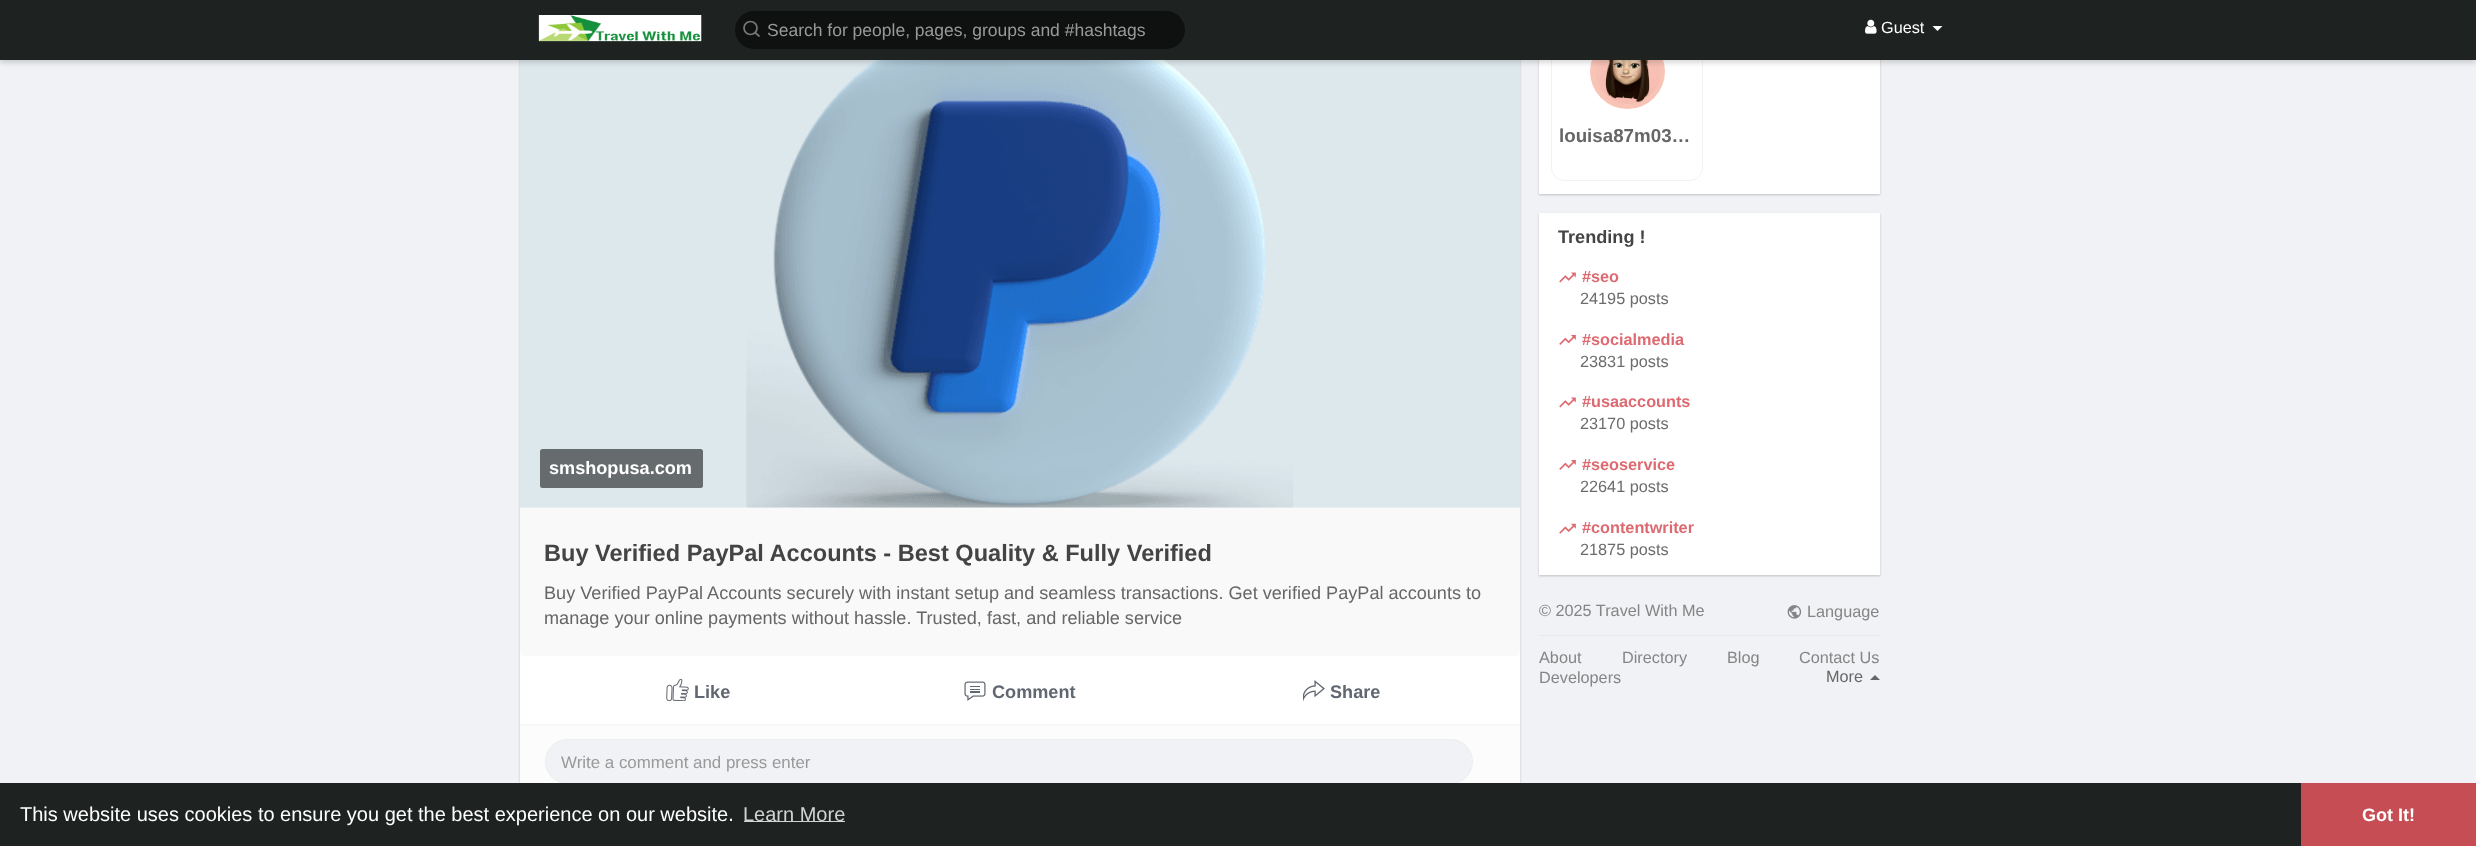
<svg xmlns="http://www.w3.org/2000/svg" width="2476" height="846">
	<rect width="100%" height="100%" fill="#F0F2F5" />
	<rect x="520" y="-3" width="1000" height="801" fill="#000000" fill-opacity="0.2" filter="blur(1px)" />
	<rect x="520" y="652" width="1000" height="72" fill="#FFFFFF" />
	<rect x="520" y="-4" width="1000" height="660" rx="4" fill="#F9F9F9" />
	<image x="520" y="60" width="1000" height="448" href="assets/img3.png" />
	<rect x="1539" y="-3" width="341" height="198" fill="#000000" fill-opacity="0.2" filter="blur(1px)" />
	<rect x="1539" y="60" width="341" height="134" fill="#FFFFFF" />
	<rect x="1551.5" y="14.5" width="151" height="166" rx="12.5" fill="none" stroke="#F0F2F5" />
	<image x="1590" y="60" width="75" height="49" href="assets/img7.png" />
	<rect x="0" y="3" width="2476" height="60" fill="#000000" fill-opacity="0.15" filter="blur(2.5px)" />
	<rect x="0" y="0" width="2476" height="60" fill="#1E2321" />
	<image x="538" y="15" width="164" height="27" href="assets/img1.png" />
	<rect x="735" y="11" width="450" height="38" rx="19" fill="#0F1110" />
	<circle cx="750.5" cy="28" r="6.5" fill="none" stroke="#787878" stroke-width="1.7" />
	<path d="M759 36L755 32.5" fill="none" stroke="#787878" stroke-width="1.7" stroke-linecap="round" stroke-linejoin="round" />
	<text x="767" y="36" font-family="Liberation Sans" font-size="17.5" fill="#999999">Search for people, pages, groups and #hashtags</text>
	<image x="1865" y="19" width="12" height="15" href="assets/img2.png" />
	<text x="1881" y="33" font-family="Liberation Sans" font-size="16.25" fill="#FFFFFF">Guest</text>
	<path d="M1932.5 26H1942.5L1937.5 31Z" fill="#FFFFFF" />
	<rect x="540" y="449" width="163" height="39" rx="2.5" fill="#666B6D" />
	<text x="549" y="474" font-family="Liberation Sans" font-size="18.12" font-weight="700" fill="#FFFFFF">smshopusa.com</text>
	<text x="544" y="561" font-family="Liberation Sans" font-size="23.55" font-weight="700" fill="#444444">Buy Verified PayPal Accounts - Best Quality &amp; Fully Verified</text>
	<g font-family="Liberation Sans" font-size="18.12" fill="#666666">
		<text x="544" y="599">Buy Verified PayPal Accounts securely with instant setup and seamless transactions. Get verified PayPal accounts to</text>
		<text x="544" y="624">manage your online payments without hassle. Trusted, fast, and reliable service</text>
	</g>
	<image x="666" y="679" width="23" height="22" href="assets/img4.png" />
	<text x="694" y="698" font-family="Liberation Sans" font-size="18.12" font-weight="700" fill="#616770">Like</text>
	<image x="964" y="681" width="22" height="20" href="assets/img5.png" />
	<text x="992" y="698" font-family="Liberation Sans" font-size="18.12" font-weight="700" fill="#616770">Comment</text>
	<image x="1303" y="680" width="22" height="22" href="assets/img6.png" />
	<text x="1330" y="698" font-family="Liberation Sans" font-size="18.12" font-weight="700" fill="#616770">Share</text>
	<rect x="520" y="726" width="1000" height="57" fill="#FCFCFC" />
	<rect x="520" y="724" width="1000" height="1" fill="#F6F6F6" />
	<rect x="520" y="725" width="1000" height="1" fill="#F9F9F9" />
	<rect x="545.5" y="739.5" width="927" height="44" rx="22" fill="#F0F2F5" stroke="#EDEDED" />
	<text x="561" y="768" font-family="Liberation Sans" font-size="16.9" fill="#999999">Write a comment and press enter</text>
	<text x="1559" y="142" font-family="Liberation Sans" font-size="18.75" font-weight="700" fill="#666666">louisa87m03…</text>
	<rect x="1539" y="214" width="341" height="362" fill="#000000" fill-opacity="0.2" filter="blur(1px)" />
	<rect x="1539" y="213" width="341" height="362" fill="#FFFFFF" />
	<text x="1558" y="243" font-family="Liberation Sans" font-size="18.12" font-weight="700" fill="#444444">Trending !</text>
	<image x="1559" y="272" width="17" height="11" href="assets/img8.png" />
	<text x="1582" y="282" font-family="Liberation Sans" font-size="16.25" font-weight="700" fill="#DD6A70">#seo</text>
	<text x="1580" y="304" font-family="Liberation Sans" font-size="16.25" fill="#6C6C6C">24195 posts</text>
	<image x="1559" y="335" width="17" height="10" href="assets/img9.png" />
	<text x="1582" y="345" font-family="Liberation Sans" font-size="16.25" font-weight="700" fill="#DD6A70">#socialmedia</text>
	<text x="1580" y="367" font-family="Liberation Sans" font-size="16.25" fill="#6C6C6C">23831 posts</text>
	<image x="1559" y="397" width="17" height="11" href="assets/img8.png" />
	<text x="1582" y="407" font-family="Liberation Sans" font-size="16.25" font-weight="700" fill="#DD6A70">#usaaccounts</text>
	<text x="1580" y="429" font-family="Liberation Sans" font-size="16.25" fill="#6C6C6C">23170 posts</text>
	<image x="1559" y="460" width="17" height="10" href="assets/img9.png" />
	<text x="1582" y="470" font-family="Liberation Sans" font-size="16.25" font-weight="700" fill="#DD6A70">#seoservice</text>
	<text x="1580" y="492" font-family="Liberation Sans" font-size="16.25" fill="#6C6C6C">22641 posts</text>
	<image x="1559" y="523" width="17" height="11" href="assets/img10.png" />
	<text x="1582" y="533" font-family="Liberation Sans" font-size="16.25" font-weight="700" fill="#DD6A70">#contentwriter</text>
	<text x="1580" y="555" font-family="Liberation Sans" font-size="16.25" fill="#6C6C6C">21875 posts</text>
	<text x="1539" y="616" font-family="Liberation Sans" font-size="16.25" fill="#858585">© 2025 Travel With Me</text>
	<image x="1787" y="605" width="15" height="14" href="assets/img11.png" />
	<text x="1807" y="617" font-family="Liberation Sans" font-size="16.25" fill="#858585">Language</text>
	<rect x="1539" y="635" width="341" height="1" fill="#E9E9E9" />
	<g font-family="Liberation Sans" font-size="16.25" fill="#858585">
		<text x="1539" y="663">About</text>
		<text x="1622" y="663">Directory</text>
		<text x="1727" y="663">Blog</text>
		<text x="1799" y="663">Contact Us</text>
		<text x="1539" y="683">Developers</text>
	</g>
	<text x="1826" y="682" font-family="Liberation Sans" font-size="16.25" fill="#666666">More</text>
	<path d="M1880 680H1870L1875 675Z" fill="#666666" />
	<rect x="0" y="783" width="2301" height="63" fill="#1E2321" />
	<text x="20" y="821" font-family="Liberation Sans" font-size="20" fill="#FFFFFF">This website uses cookies to ensure you get the best experience on our website.</text>
	<rect x="744" y="821" width="101" height="1" fill="#D2D3D3" />
	<text x="743" y="821" font-family="Liberation Sans" font-size="20" fill="#D2D3D3">Learn More</text>
	<rect x="2301" y="783" width="175" height="63" fill="#C64D53" />
	<text x="2362" y="821" font-family="Liberation Sans" font-size="18" font-weight="700" fill="#FFFFFF">Got It!</text>
</svg>
